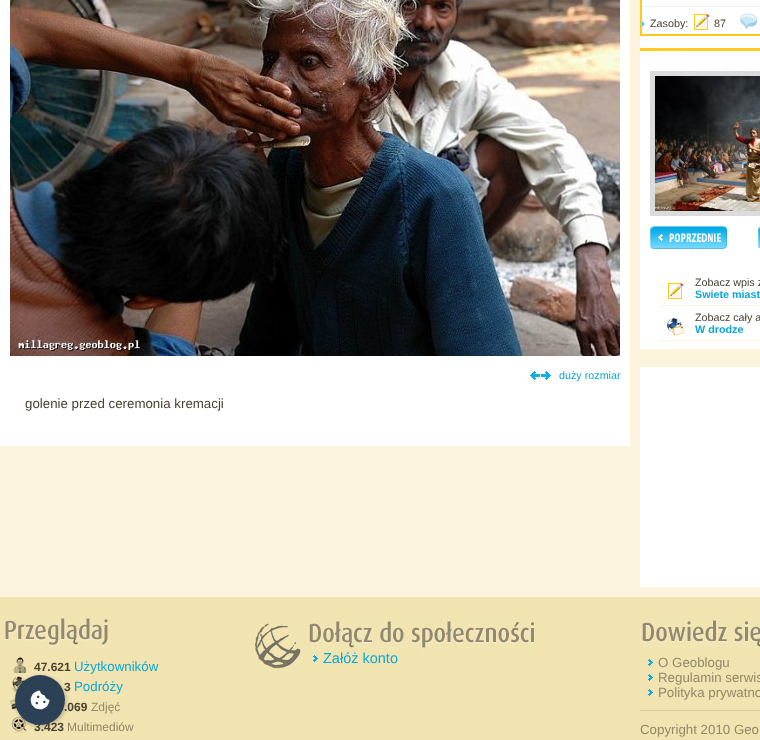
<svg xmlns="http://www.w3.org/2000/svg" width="760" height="740">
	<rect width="100%" height="100%" fill="#FCF4DD" />
	<rect x="640" y="0" width="120" height="349" fill="#FFFFFF" />
	<rect x="641" y="-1" width="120" height="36" fill="none" stroke="#FFCA1C" stroke-width="2" />
	<rect x="642" y="6" width="118" height="1" fill="#F0F0F0" />
	<image x="642" y="21" width="3" height="6" href="assets/img1.png" />
	<text x="650" y="27" font-family="Liberation Sans" font-size="10.75" fill="#4B4233">Zasoby:</text>
	<image x="694" y="14" width="16" height="16" href="assets/img2.png" />
	<text x="714" y="27" font-family="Liberation Sans" font-size="10.75" fill="#4B4233">87</text>
	<image x="740" y="13" width="17" height="16" href="assets/img3.png" />
	<image x="640" y="48" width="120" height="21" href="assets/img4.png" />
	<rect x="652.5" y="73.5" width="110" height="140" fill="none" stroke="#DBDBDB" stroke-width="5" />
	<image x="655" y="76" width="105" height="135" href="assets/img5.png" />
	<image x="650" y="226" width="77" height="23" href="assets/img6.png" />
	<image x="758" y="226" width="2" height="23" href="assets/img7.png" />
	<rect x="660" y="305" width="100" height="1" fill="#FAF5DF" />
	<image x="668" y="283" width="16" height="16" href="assets/img2.png" />
	<text x="695" y="286" font-family="Liberation Sans" font-size="10.75" fill="#4B4233">Zobacz wpis z</text>
	<text x="695" y="298" font-family="Liberation Sans" font-size="10.75" font-weight="700" fill="#0BA7D8">Swiete miast</text>
	<rect x="660" y="340" width="100" height="1" fill="#FAF5DF" />
	<image x="667" y="318" width="18" height="18" href="assets/img8.png" />
	<text x="695" y="321" font-family="Liberation Sans" font-size="10.75" fill="#4B4233">Zobacz cały a</text>
	<text x="695" y="333" font-family="Liberation Sans" font-size="10.75" font-weight="700" fill="#0BA7D8">W drodze</text>
	<rect x="640" y="367" width="120" height="220" fill="#FFFFFF" />
	<rect x="0" y="0" width="630" height="446" fill="#FFFFFF" />
	<image x="10" y="0" width="610" height="356" href="assets/img9.png" />
	<image x="530" y="371" width="21" height="9" href="assets/img10.png" />
	<text x="559" y="379" font-family="Liberation Sans" font-size="10.75" fill="#0BA7D8">duży rozmiar</text>
	<text x="25" y="408" font-family="Liberation Sans" font-size="13.3" fill="#4B4233">golenie przed ceremonia kremacji</text>
	<rect x="0" y="597" width="760" height="143" fill="#F2E4B1" />
	<image x="252" y="619" width="52" height="52" href="assets/img11.png" />
	<image x="305" y="619" width="234" height="31" href="assets/img12.png" />
	<image x="310" y="653" width="9" height="12" href="assets/img13.png" />
	<text x="323" y="663" font-family="Liberation Sans" font-size="14.5" fill="#0BA7D8">Załóż konto</text>
	<image x="4" y="617" width="104" height="32" href="assets/img14.png" />
	<image x="11" y="657" width="16" height="16" href="assets/img15.png" />
	<text x="34" y="671" font-family="Liberation Sans" font-size="12" font-weight="700" fill="#4B4233">47.621</text>
	<text x="74" y="671" font-family="Liberation Sans" font-size="13.3" fill="#0BA7D8">Użytkowników</text>
	<image x="11" y="676" width="18" height="17" href="assets/img16.png" />
	<text x="64" y="691" font-family="Liberation Sans" font-size="12" font-weight="700" fill="#4B4233">3</text>
	<text x="74" y="691" font-family="Liberation Sans" font-size="13.3" fill="#0BA7D8">Podróży</text>
	<image x="10" y="697" width="9" height="16" href="assets/img17.png" />
	<text x="64" y="711" font-family="Liberation Sans" font-size="12" font-weight="700" fill="#4B4233">.069</text>
	<text x="91" y="711" font-family="Liberation Sans" font-size="12" fill="#92886A">Zdjęć</text>
	<image x="11" y="716" width="16" height="17" href="assets/img18.png" />
	<text x="34" y="731" font-family="Liberation Sans" font-size="12" font-weight="700" fill="#4B4233">3.423</text>
	<text x="67" y="731" font-family="Liberation Sans" font-size="12" fill="#92886A">Multimediów</text>
	<image x="642" y="619" width="118" height="28" href="assets/img19.png" />
	<rect x="640" y="710" width="120" height="1" fill="#D7C99A" />
	<image x="645" y="657" width="9" height="12" href="assets/img13.png" />
	<text x="658" y="667" font-family="Liberation Sans" font-size="13.3" fill="#92886A">O Geoblogu</text>
	<image x="645" y="672" width="9" height="12" href="assets/img13.png" />
	<text x="658" y="682" font-family="Liberation Sans" font-size="13.3" fill="#92886A">Regulamin serwis</text>
	<image x="645" y="687" width="9" height="12" href="assets/img13.png" />
	<g font-family="Liberation Sans" font-size="13.3" fill="#92886A">
		<text x="658" y="697">Polityka prywatno</text>
		<text x="640" y="734">Copyright 2010 Geo</text>
	</g>
	<rect x="16" y="677" width="50" height="50" rx="25" fill="#000000" fill-opacity="0.25" filter="blur(2px)" />
	<circle cx="40" cy="700" r="25" fill="#2D4156" />
	<image x="30" y="690" width="20" height="20" href="assets/img20.png" />
</svg>
